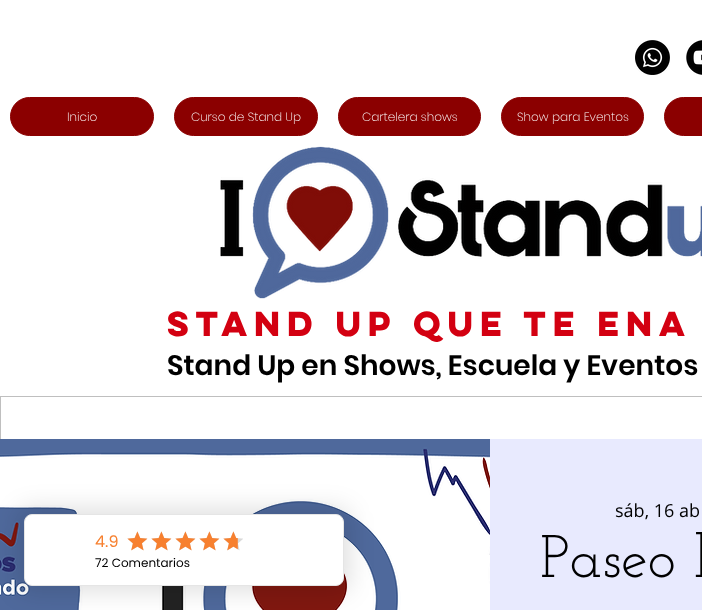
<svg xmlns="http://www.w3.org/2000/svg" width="702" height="610">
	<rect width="100%" height="100%" fill="#FFFFFF" />
	<image x="635" y="40" width="35" height="35" href="assets/img1.png" />
	<image x="686" y="40" width="16" height="35" href="assets/img2.png" />
	<rect x="10.5" y="97.5" width="143" height="38" rx="19" fill="#8B0000" stroke="#8B0000" />
	<text x="67" y="121" font-family="Poppins" font-size="12" font-weight="200" fill="#FFFFFF">Inicio</text>
	<rect x="174.5" y="97.5" width="143" height="38" rx="19" fill="#8B0000" stroke="#8B0000" />
	<text x="191" y="121" font-family="Poppins" font-size="12" font-weight="200" fill="#FFFFFF">Curso de Stand Up</text>
	<rect x="338.5" y="97.5" width="142" height="38" rx="19" fill="#8B0000" stroke="#8B0000" />
	<text x="362" y="121" font-family="Poppins" font-size="12" font-weight="200" fill="#FFFFFF">Cartelera shows</text>
	<rect x="501.5" y="97.5" width="142" height="38" rx="19" fill="#8B0000" stroke="#8B0000" />
	<text x="517" y="121" font-family="Poppins" font-size="12" font-weight="200" fill="#FFFFFF">Show para Eventos</text>
	<rect x="664.5" y="97.5" width="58" height="38" rx="19" fill="#8B0000" stroke="#8B0000" />
	<image x="220" y="146" width="482" height="153" href="assets/img3.png" />
	<text x="167" y="336" font-family="'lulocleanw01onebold'" font-size="31" font-weight="700" fill="#D30011">STAND UP que te ena</text>
	<text x="167" y="375" font-family="Poppins" font-size="28" font-weight="600" fill="#000000">Stand Up en Shows, Escuela y Eventos</text>
	<rect x="0.5" y="396.5" width="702" height="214" fill="none" stroke="#BFBFBF" />
	<image x="0" y="439" width="490" height="171" href="assets/img4.png" />
	<rect x="490" y="439" width="212" height="171" fill="#E8EAFE" />
	<text x="615" y="517" font-family="Open Sans" font-size="18" fill="#000000">sáb, 16 ab</text>
	<text x="540" y="577" font-family="Josefin Slab" font-size="60" fill="#000000">Paseo l</text>
	<rect x="18" y="508" width="332" height="84" rx="12" fill="#000000" fill-opacity="0.12" filter="blur(12px)" />
	<rect x="24.5" y="514.5" width="319" height="71" rx="7.5" fill="#FFFFFF" stroke="#E5E5E5" />
	<text x="95" y="547" font-family="Poppins" font-size="16" fill="#F7802F">4.9</text>
	<image x="127" y="531" width="20" height="20" href="assets/img5.png" />
	<image x="127" y="531" width="21" height="20" href="assets/img6.png" />
	<image x="151" y="531" width="20" height="20" href="assets/img5.png" />
	<image x="151" y="531" width="21" height="20" href="assets/img6.png" />
	<image x="175" y="531" width="20" height="20" href="assets/img5.png" />
	<image x="175" y="531" width="21" height="20" href="assets/img6.png" />
	<image x="199" y="531" width="20" height="20" href="assets/img5.png" />
	<image x="199" y="531" width="21" height="20" href="assets/img6.png" />
	<image x="223" y="531" width="20" height="20" href="assets/img5.png" />
	<image x="223" y="531" width="15" height="20" href="assets/img7.png" />
	<text x="95" y="567" font-family="Poppins" font-size="12" fill="#000000">72 Comentarios</text>
</svg>
